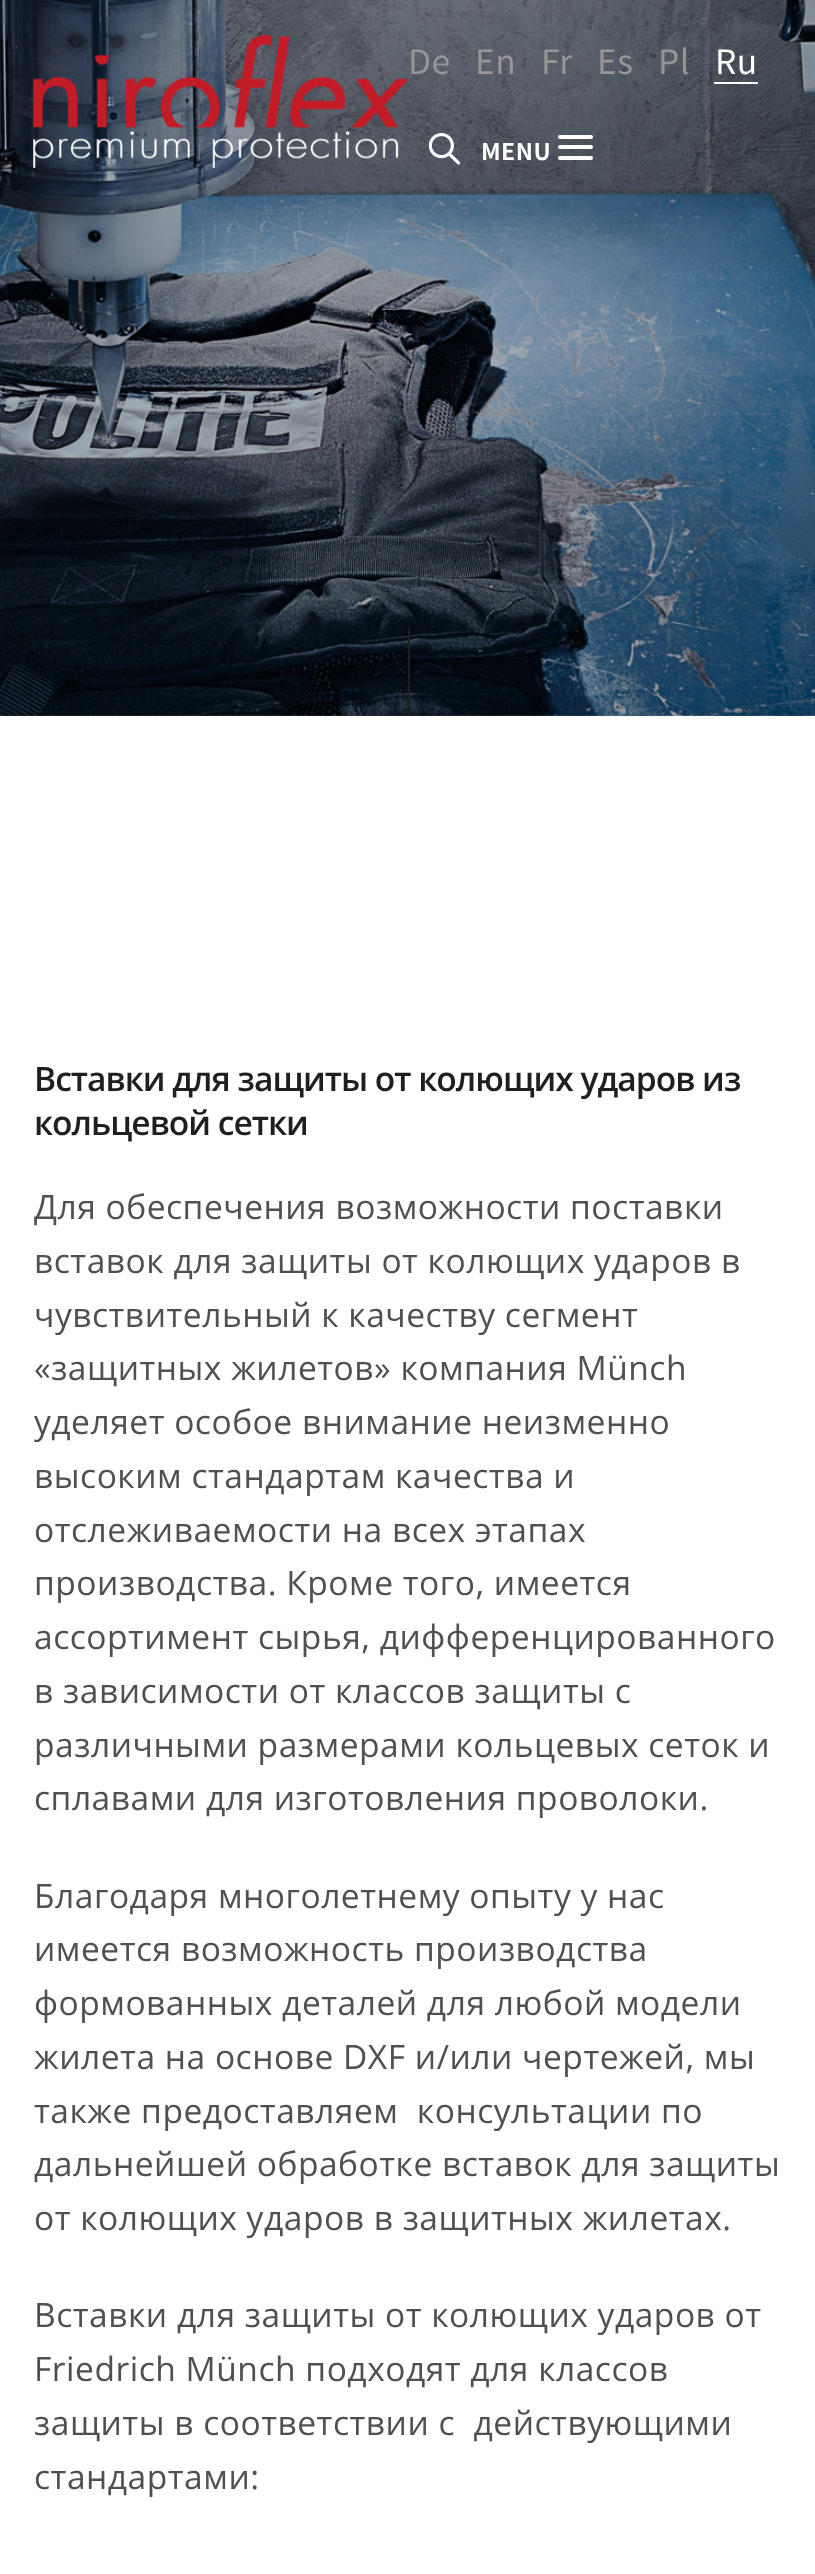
<svg xmlns="http://www.w3.org/2000/svg" width="815" height="2574">
	<rect width="100%" height="100%" fill="#FFFFFF" />
	<image x="0" y="715" width="815" height="1" href="assets/img3.png" />
	<image x="0" y="0" width="815" height="716" href="assets/img4.png" />
	<image x="33" y="35" width="375" height="133" href="assets/img1.png" />
	<g font-family="Noto Sans SC" font-size="33.6" letter-spacing="0.5" fill="#969696">
		<text x="408" y="74">De</text>
		<text x="475" y="74">En</text>
		<text x="541" y="74">Fr</text>
		<text x="597" y="74">Es</text>
		<text x="658" y="74">Pl</text>
	</g>
	<text x="715" y="74" font-family="Noto Sans SC" font-size="33.6" letter-spacing="0.5" fill="#FFFFFF">Ru</text>
	<rect x="714" y="82" width="44" height="2" fill="#FFFFFF" />
	<image x="429" y="133" width="31" height="32" href="assets/img2.png" />
	<text x="481" y="160" font-family="Noto Sans SC" font-size="23" font-weight="700" letter-spacing="0.5" fill="#FFFFFF">MENU</text>
	<rect x="558" y="135" width="35" height="4" rx="2" fill="#FFFFFF" />
	<rect x="558" y="145" width="35" height="4" rx="2" fill="#FFFFFF" />
	<rect x="558" y="156" width="35" height="4" rx="2" fill="#FFFFFF" />
	<rect x="408" y="628" width="2" height="88" fill="#1F1F1F" />
	<g font-family="Open Sans" font-size="33.6" font-weight="600" letter-spacing="-1" fill="#1F1F1F">
		<text x="34" y="1091">Вставки для защиты от колющих ударов из</text>
		<text x="34" y="1135">кольцевой сетки</text>
	</g>
	<g font-family="Open Sans" font-size="33.6" letter-spacing="0.5" fill="#505050">
		<text x="34" y="1219">Для обеспечения возможности поставки</text>
		<text x="34" y="1273">вставок для защиты от колющих ударов в</text>
		<text x="34" y="1327">чувствительный к качеству сегмент</text>
		<text x="34" y="1380">«защитных жилетов» компания Münch</text>
		<text x="34" y="1434">уделяет особое внимание неизменно</text>
		<text x="34" y="1488">высоким стандартам качества и</text>
		<text x="34" y="1542">отслеживаемости на всех этапах</text>
		<text x="34" y="1595">производства. Кроме того, имеется</text>
		<text x="34" y="1649">ассортимент сырья, дифференцированного</text>
		<text x="34" y="1703">в зависимости от классов защиты с</text>
		<text x="34" y="1757">различными размерами кольцевых сеток и</text>
		<text x="34" y="1810">сплавами для изготовления проволоки.</text>
		<text x="34" y="1908">Благодаря многолетнему опыту у нас</text>
		<text x="34" y="1961">имеется возможность производства</text>
		<text x="34" y="2015">формованных деталей для любой модели</text>
		<text x="34" y="2069">жилета на основе DXF и/или чертежей, мы</text>
		<text x="34" y="2123" xml:space="preserve">также предоставляем  консультации по</text>
		<text x="34" y="2176">дальнейшей обработке вставок для защиты</text>
		<text x="34" y="2230">от колющих ударов в защитных жилетах.</text>
		<text x="34" y="2327">Вставки для защиты от колющих ударов от</text>
		<text x="34" y="2381">Friedrich Münch подходят для классов</text>
		<text x="34" y="2435" xml:space="preserve">защиты в соответствии с  действующими</text>
		<text x="34" y="2489">стандартами:</text>
	</g>
</svg>
